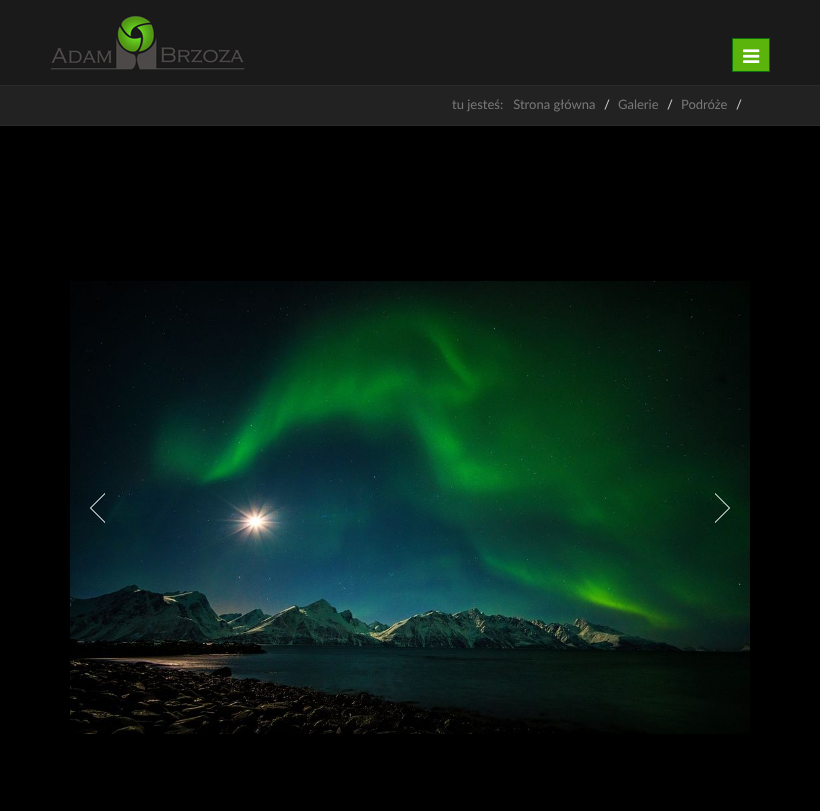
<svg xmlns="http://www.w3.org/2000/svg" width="820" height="811">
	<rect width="100%" height="100%" fill="#000000" />
	<rect x="0" y="0" width="820" height="85" fill="#1A1A1A" />
	<rect x="0" y="85" width="820" height="1" fill="#2A2A2A" />
	<image x="51" y="15" width="194" height="55" href="assets/img1.png" />
	<rect x="732.5" y="38.5" width="37" height="33" fill="#5BB40B" stroke="#0C6E0C" />
	<image x="743" y="49" width="17" height="14" href="assets/img2.png" />
	<rect x="0" y="86" width="820" height="39" fill="#222222" />
	<rect x="0" y="125" width="820" height="1" fill="#2A2A2A" />
	<text x="452" y="109" font-family="Lato" font-size="13" fill="#777777" xml:space="preserve">tu jesteś:   Strona główna</text>
	<text x="604" y="109" font-family="Lato" font-size="13" fill="#CCCCCC">/</text>
	<text x="618" y="109" font-family="Lato" font-size="13" fill="#777777">Galerie</text>
	<text x="667" y="109" font-family="Lato" font-size="13" fill="#CCCCCC">/</text>
	<text x="681" y="109" font-family="Lato" font-size="13" fill="#777777">Podróże</text>
	<text x="736" y="109" font-family="Lato" font-size="13" fill="#CCCCCC">/</text>
	<image x="70" y="281" width="680" height="453" href="assets/img3.png" />
	<image x="90" y="493" width="15" height="30" href="assets/img4.png" />
	<image x="715" y="493" width="15" height="30" href="assets/img5.png" />
</svg>
